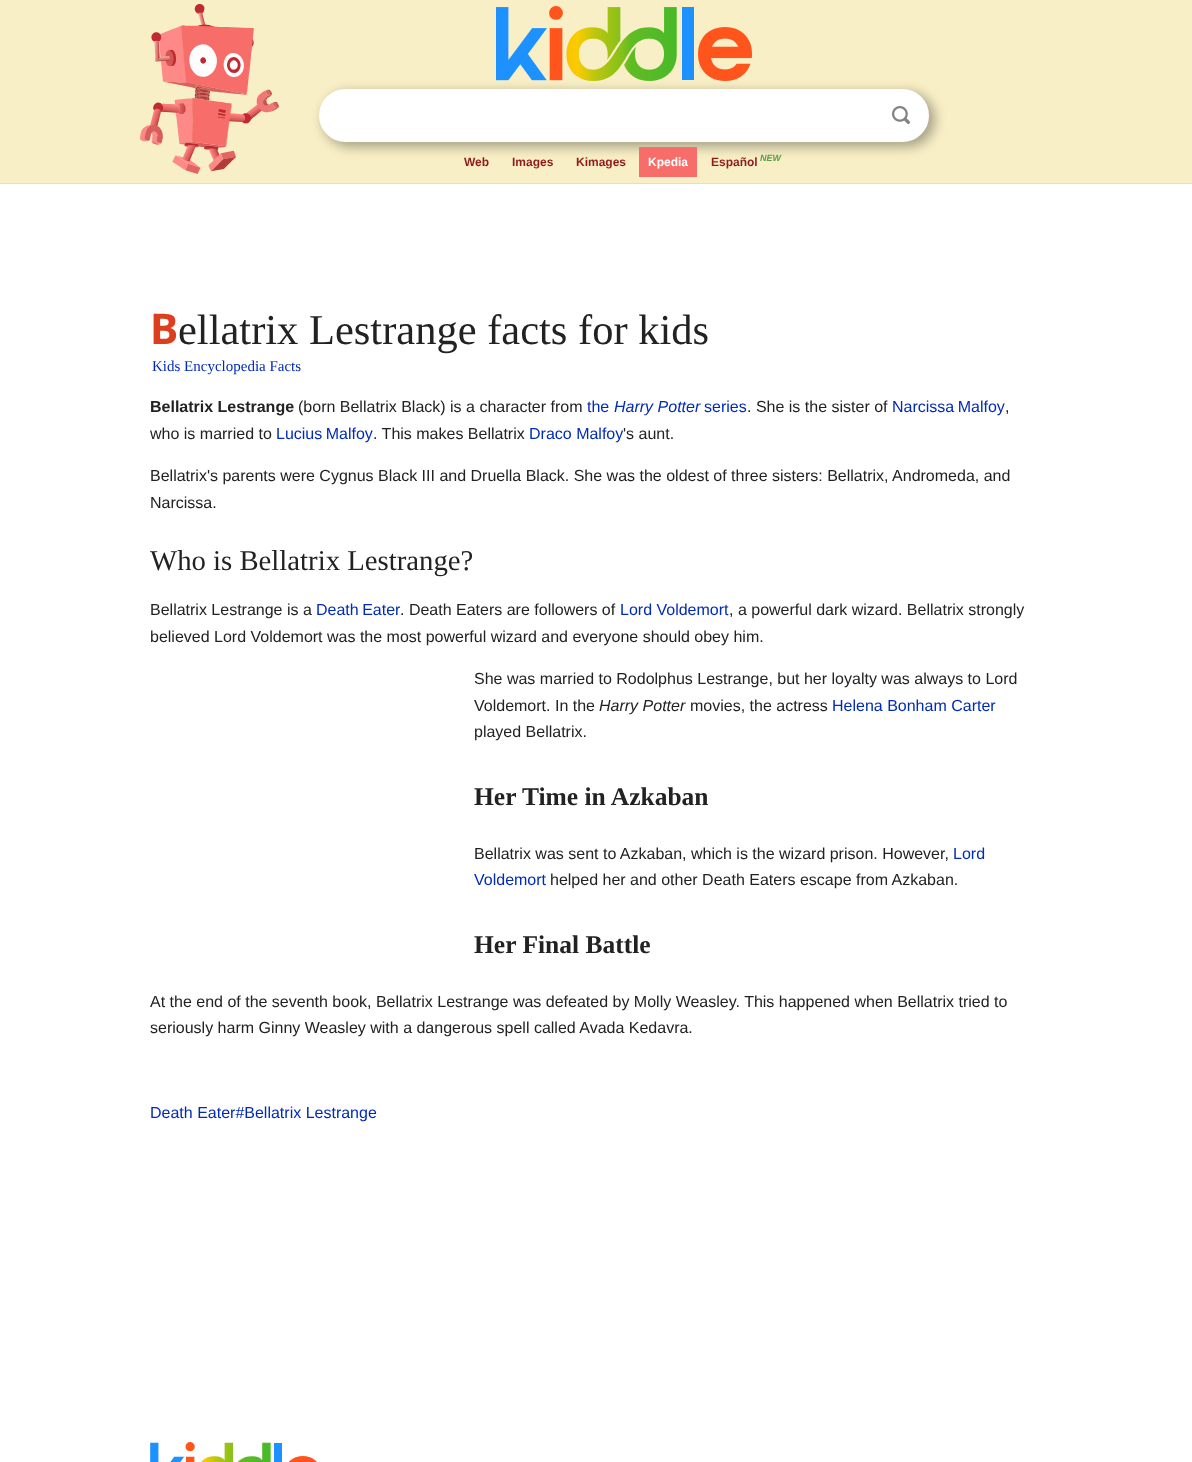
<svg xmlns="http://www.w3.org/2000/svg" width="1192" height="1462">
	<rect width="100%" height="100%" fill="#F8EFC6" />
	<rect x="0" y="183" width="1192" height="1" fill="#DDDDDD" />
	<image x="140" y="4" width="139" height="170" href="assets/img1.png" />
	<rect x="323" y="92" width="612" height="55" rx="27.5" fill="#000000" fill-opacity="0.32" filter="blur(6px)" />
	<image x="496" y="6" width="256" height="75" href="assets/img2.png" />
	<rect x="321" y="91" width="606" height="49" rx="24.5" fill="#FFFFFF" stroke="#FFFFFF" stroke-width="4" />
	<image x="892" y="106" width="18" height="18" href="assets/img3.png" />
	<g font-family="Liberation Sans" font-size="12" font-weight="700" fill="#911C1C">
		<text x="464" y="166">Web</text>
		<text x="512" y="166">Images</text>
		<text x="576" y="166">Kimages</text>
	</g>
	<rect x="639" y="147" width="58" height="30" fill="#F76D6A" />
	<text x="648" y="166" font-family="Liberation Sans" font-size="12" font-weight="700" fill="#FFFFFF">Kpedia</text>
	<text x="711" y="166" font-family="Liberation Sans" font-size="12" font-weight="700" fill="#911C1C">Español</text>
	<text x="760" y="161" font-family="Liberation Sans" font-size="9" font-weight="700" font-style="italic" fill="#5D9B48">NEW</text>
	<rect x="0" y="184" width="1192" height="1278" fill="#FFFFFF" />
	<text x="150" y="344" font-family="Noto Sans" font-size="42.5" font-weight="700" fill="#DD3F1E">B</text>
	<text x="178" y="344" font-family="Liberation Serif" font-size="42.5" fill="#222222">ellatrix Lestrange facts for kids</text>
	<text x="152" y="371" font-family="Liberation Serif" font-size="15" fill="#002BB8">Kids Encyclopedia Facts</text>
	<text x="150" y="412" font-family="Liberation Sans" font-size="16" font-weight="700" fill="#222222">Bellatrix Lestrange</text>
	<text x="298" y="412" font-family="Liberation Sans" font-size="16" fill="#222222">(born Bellatrix Black) is a character from</text>
	<text x="587" y="412" font-family="Liberation Sans" font-size="16" fill="#002BB8">the</text>
	<text x="614" y="412" font-family="Liberation Sans" font-size="16" font-style="italic" fill="#002BB8">Harry Potter</text>
	<text x="704" y="412" font-family="Liberation Sans" font-size="16" fill="#002BB8">series</text>
	<text x="747" y="412" font-family="Liberation Sans" font-size="16" fill="#222222">. She is the sister of</text>
	<text x="892" y="412" word-spacing="-1" font-family="Liberation Sans" font-size="16" fill="#002BB8">Narcissa Malfoy</text>
	<g font-family="Liberation Sans" font-size="16" fill="#222222">
		<text x="1005" y="412">,</text>
		<text x="150" y="439">who is married to</text>
	</g>
	<text x="276" y="439" word-spacing="-1" font-family="Liberation Sans" font-size="16" fill="#002BB8">Lucius Malfoy</text>
	<text x="373" y="439" font-family="Liberation Sans" font-size="16" fill="#222222">. This makes Bellatrix</text>
	<text x="529" y="439" font-family="Liberation Sans" font-size="16" fill="#002BB8">Draco Malfoy</text>
	<g font-family="Liberation Sans" font-size="16" fill="#222222">
		<text x="623" y="439">'s aunt.</text>
		<text x="150" y="481">Bellatrix's parents were Cygnus Black III and Druella Black. She was the oldest of three sisters: Bellatrix, Andromeda, and</text>
		<text x="150" y="508">Narcissa.</text>
	</g>
	<text x="150" y="570" font-family="Liberation Serif" font-size="28.75" fill="#222222">Who is Bellatrix Lestrange?</text>
	<text x="150" y="615" font-family="Liberation Sans" font-size="16" fill="#222222">Bellatrix Lestrange is a</text>
	<text x="316" y="615" word-spacing="-1" font-family="Liberation Sans" font-size="16" fill="#002BB8">Death Eater</text>
	<text x="400" y="615" font-family="Liberation Sans" font-size="16" fill="#222222">. Death Eaters are followers of</text>
	<text x="620" y="615" font-family="Liberation Sans" font-size="16" fill="#002BB8">Lord Voldemort</text>
	<g font-family="Liberation Sans" font-size="16" fill="#222222">
		<text x="729" y="615">, a powerful dark wizard. Bellatrix strongly</text>
		<text x="150" y="642">believed Lord Voldemort was the most powerful wizard and everyone should obey him.</text>
		<text x="474" y="684">She was married to Rodolphus Lestrange, but her loyalty was always to Lord</text>
		<text x="474" y="711">Voldemort. In the</text>
	</g>
	<text x="599" y="711" font-family="Liberation Sans" font-size="16" font-style="italic" fill="#222222">Harry Potter</text>
	<text x="690" y="711" font-family="Liberation Sans" font-size="16" fill="#222222">movies, the actress</text>
	<text x="832" y="711" font-family="Liberation Sans" font-size="16" fill="#002BB8">Helena Bonham Carter</text>
	<text x="474" y="737" font-family="Liberation Sans" font-size="16" fill="#222222">played Bellatrix.</text>
	<text x="474" y="805" font-family="Liberation Serif" font-size="25.5" font-weight="700" fill="#222222">Her Time in Azkaban</text>
	<text x="474" y="859" font-family="Liberation Sans" font-size="16" fill="#222222">Bellatrix was sent to Azkaban, which is the wizard prison. However,</text>
	<g font-family="Liberation Sans" font-size="16" fill="#002BB8">
		<text x="953" y="859">Lord</text>
		<text x="474" y="885">Voldemort</text>
	</g>
	<text x="550" y="885" font-family="Liberation Sans" font-size="16" fill="#222222">helped her and other Death Eaters escape from Azkaban.</text>
	<text x="474" y="953" font-family="Liberation Serif" font-size="25.5" font-weight="700" fill="#222222">Her Final Battle</text>
	<g font-family="Liberation Sans" font-size="16" fill="#222222">
		<text x="150" y="1007">At the end of the seventh book, Bellatrix Lestrange was defeated by Molly Weasley. This happened when Bellatrix tried to</text>
		<text x="150" y="1033">seriously harm Ginny Weasley with a dangerous spell called Avada Kedavra.</text>
	</g>
	<text x="150" y="1118" font-family="Liberation Sans" font-size="16" fill="#002BB8">Death Eater#Bellatrix Lestrange</text>
	<image x="150" y="1442" width="167" height="20" href="assets/img4.png" />
</svg>
